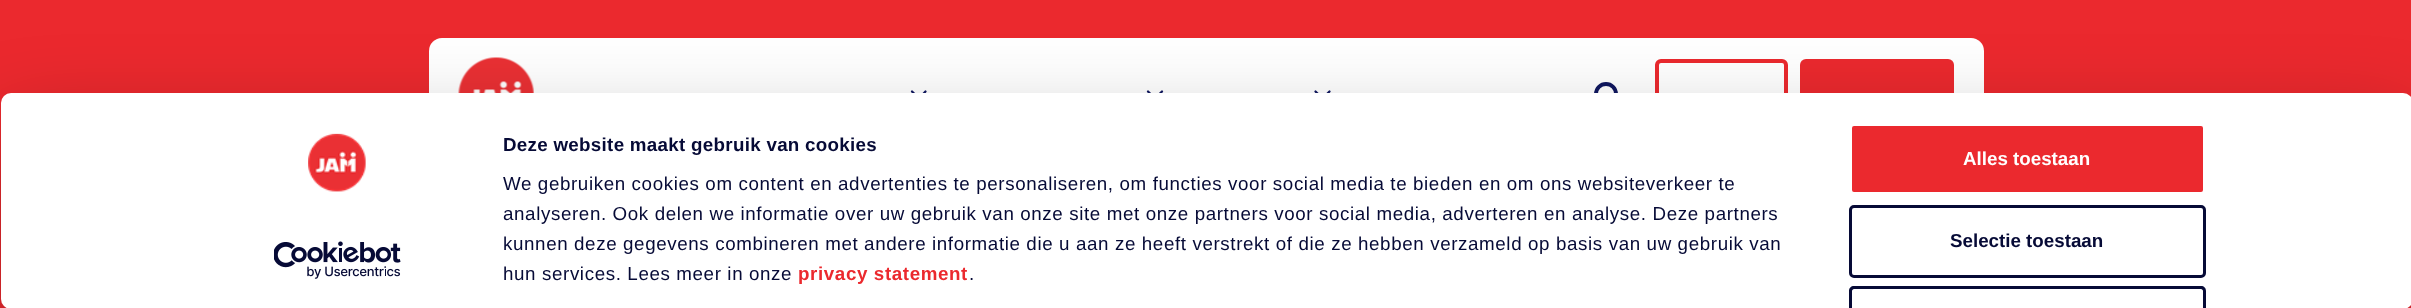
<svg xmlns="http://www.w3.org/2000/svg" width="2411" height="308">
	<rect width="100%" height="100%" fill="#EB292E" />
	<rect x="429" y="38" width="1555" height="115" rx="13" fill="#FFFFFF" />
	<image x="458" y="57" width="76" height="36" href="assets/img1.png" />
	<path d="M912 91.5L919 98.5L925.5 91.5" fill="none" stroke="#101860" stroke-width="2.3" stroke-linecap="round" stroke-linejoin="round" />
	<path d="M1148 91.5L1155 98.5L1162 91.5" fill="none" stroke="#101860" stroke-width="2.3" stroke-linecap="round" stroke-linejoin="round" />
	<path d="M1315.5 91.5L1322.5 98.5L1329.5 91.5" fill="none" stroke="#101860" stroke-width="2.3" stroke-linecap="round" stroke-linejoin="round" />
	<circle cx="1606" cy="94" r="10" fill="none" stroke="#101860" stroke-width="3.8" />
	<rect x="1657" y="61" width="129" height="68" rx="4" fill="none" stroke="#EB292E" stroke-width="4" />
	<rect x="1800" y="59" width="154" height="72" rx="6" fill="#EB292E" />
	<rect x="1" y="130" width="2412" height="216" rx="10" fill="#000000" fill-opacity="0.3" filter="blur(44px)" />
	<rect x="1" y="93" width="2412" height="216" rx="10" fill="#FFFFFF" />
	<image x="308" y="133" width="58" height="59" href="assets/img2.png" />
	<image x="274" y="241" width="127" height="38" href="assets/img3.png" />
	<text x="503" y="151" font-family="Liberation Sans" font-size="18.75" font-weight="700" letter-spacing="0.3" fill="#060A36">Deze website maakt gebruik van cookies</text>
	<g font-family="Liberation Sans" font-size="18.75" letter-spacing="0.62" fill="#060A36">
		<text x="503" y="190">We gebruiken cookies om content en advertenties te personaliseren, om functies voor social media te bieden en om ons websiteverkeer te</text>
		<text x="503" y="220">analyseren. Ook delen we informatie over uw gebruik van onze site met onze partners voor social media, adverteren en analyse. Deze partners</text>
		<text x="503" y="250">kunnen deze gegevens combineren met andere informatie die u aan ze heeft verstrekt of die ze hebben verzameld op basis van uw gebruik van</text>
		<text x="503" y="280">hun services. Lees meer in onze</text>
	</g>
	<text x="798" y="280" font-family="Liberation Sans" font-size="18.75" font-weight="700" letter-spacing="0.62" fill="#EB292E">privacy statement</text>
	<text x="969" y="280" font-family="Liberation Sans" font-size="18.75" letter-spacing="0.62" fill="#060A36">.</text>
	<rect x="1850.5" y="124.5" width="354" height="69" rx="3.5" fill="#EB292E" stroke="#FFFFFF" stroke-width="3" />
	<text x="1963" y="165" font-family="Liberation Sans" font-size="18.75" font-weight="700" fill="#FFFFFF">Alles toestaan</text>
	<rect x="1850.5" y="206.5" width="354" height="70" rx="3.5" fill="none" stroke="#060A36" stroke-width="3" />
	<text x="1950" y="247" font-family="Liberation Sans" font-size="18.75" font-weight="700" fill="#060A36">Selectie toestaan</text>
	<path d="M1854 286C1851 286 1849 288 1849 291V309H1852V291C1852 290 1853 289 1854 289H2201C2202 289 2203 290 2203 291V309H2206V291C2206 288 2204 286 2201 286Z" fill="#060A36" />
</svg>
